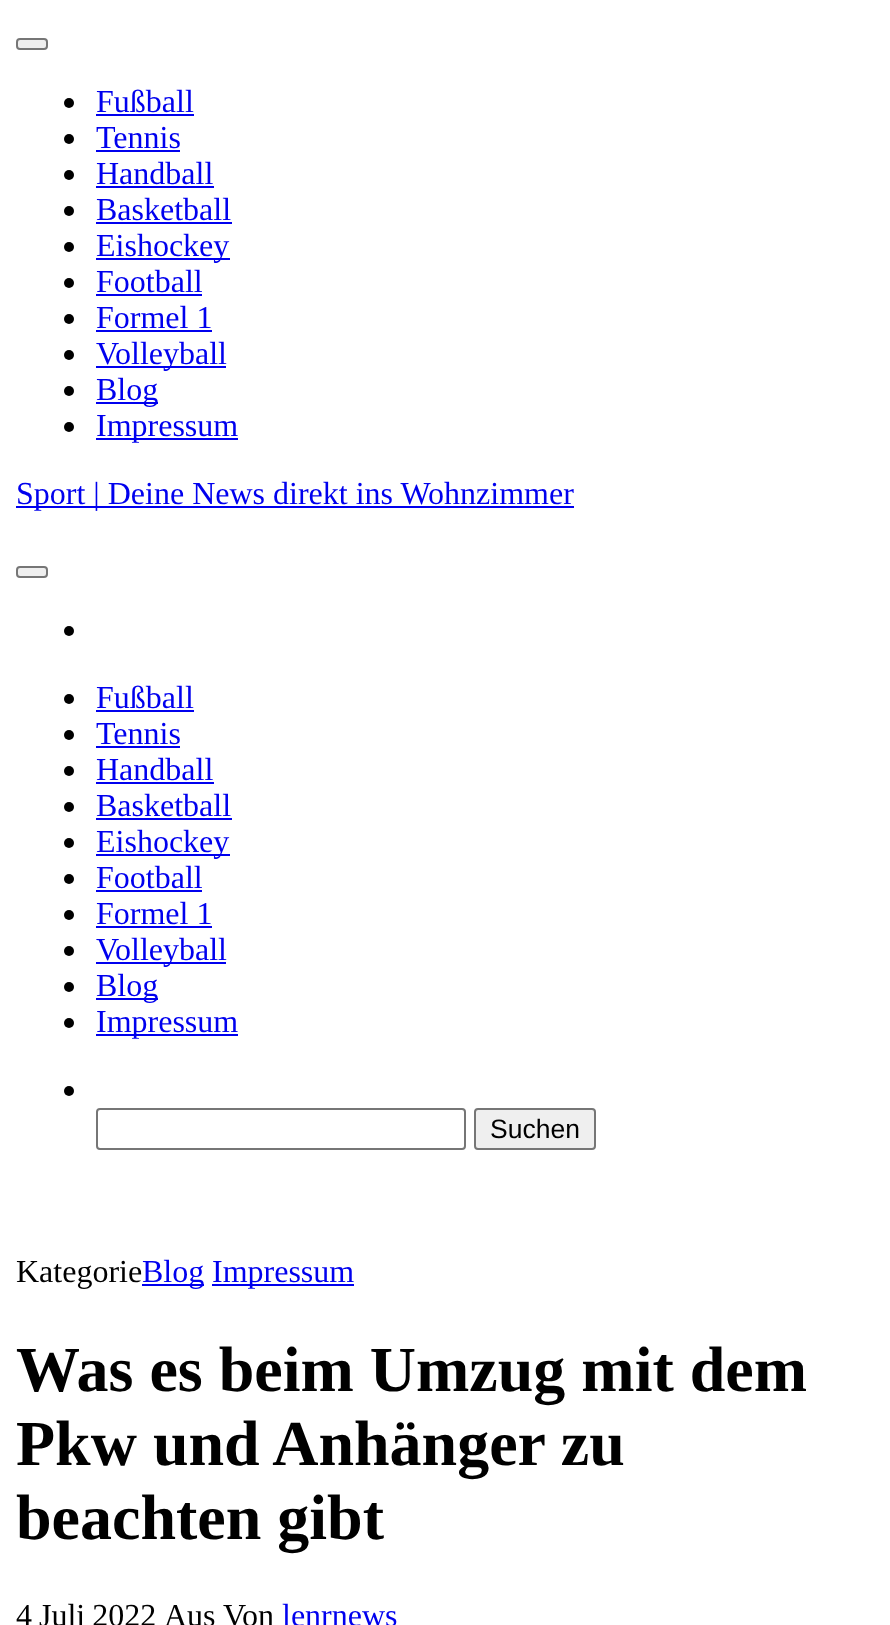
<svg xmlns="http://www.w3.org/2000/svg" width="890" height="1625">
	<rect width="100%" height="100%" fill="#FFFFFF" />
	<rect x="17" y="39" width="30" height="10" rx="3" fill="#EFEFEF" stroke="#767676" stroke-width="2" />
	<circle cx="69" cy="103" r="5" fill="#000000" />
	<text x="96" y="112" font-family="Liberation Serif" font-size="32" fill="#0000EE">Fußball</text>
	<rect x="96" y="114" width="98" height="2" fill="#0000EE" />
	<circle cx="69" cy="139" r="5" fill="#000000" />
	<text x="96" y="148" font-family="Liberation Serif" font-size="32" fill="#0000EE">Tennis</text>
	<rect x="96" y="150" width="84" height="2" fill="#0000EE" />
	<circle cx="69" cy="175" r="5" fill="#000000" />
	<text x="96" y="184" font-family="Liberation Serif" font-size="32" fill="#0000EE">Handball</text>
	<rect x="96" y="186" width="118" height="2" fill="#0000EE" />
	<circle cx="69" cy="211" r="5" fill="#000000" />
	<text x="96" y="220" font-family="Liberation Serif" font-size="32" fill="#0000EE">Basketball</text>
	<rect x="96" y="222" width="136" height="2" fill="#0000EE" />
	<circle cx="69" cy="247" r="5" fill="#000000" />
	<rect x="96" y="258" width="134" height="2" fill="#0000EE" />
	<text x="96" y="256" font-family="Liberation Serif" font-size="32" fill="#0000EE">Eishockey</text>
	<circle cx="69" cy="283" r="5" fill="#000000" />
	<text x="96" y="292" font-family="Liberation Serif" font-size="32" fill="#0000EE">Football</text>
	<rect x="96" y="294" width="106" height="2" fill="#0000EE" />
	<circle cx="69" cy="319" r="5" fill="#000000" />
	<text x="96" y="328" font-family="Liberation Serif" font-size="32" fill="#0000EE">Formel 1</text>
	<rect x="96" y="330" width="116" height="2" fill="#0000EE" />
	<circle cx="69" cy="355" r="5" fill="#000000" />
	<rect x="96" y="366" width="130" height="2" fill="#0000EE" />
	<text x="96" y="364" font-family="Liberation Serif" font-size="32" fill="#0000EE">Volleyball</text>
	<circle cx="69" cy="391" r="5" fill="#000000" />
	<rect x="96" y="402" width="62" height="2" fill="#0000EE" />
	<text x="96" y="400" font-family="Liberation Serif" font-size="32" fill="#0000EE">Blog</text>
	<circle cx="69" cy="427" r="5" fill="#000000" />
	<rect x="96" y="438" width="142" height="2" fill="#0000EE" />
	<text x="96" y="436" font-family="Liberation Serif" font-size="32" fill="#0000EE">Impressum</text>
	<rect x="16" y="506" width="558" height="2" fill="#0000EE" />
	<text x="16" y="504" font-family="Liberation Serif" font-size="32" fill="#0000EE">Sport | Deine News direkt ins Wohnzimmer</text>
	<rect x="17" y="567" width="30" height="10" rx="3" fill="#EFEFEF" stroke="#767676" stroke-width="2" />
	<circle cx="69" cy="631" r="5" fill="#000000" />
	<circle cx="69" cy="699" r="5" fill="#000000" />
	<text x="96" y="708" font-family="Liberation Serif" font-size="32" fill="#0000EE">Fußball</text>
	<rect x="96" y="710" width="98" height="2" fill="#0000EE" />
	<circle cx="69" cy="735" r="5" fill="#000000" />
	<text x="96" y="744" font-family="Liberation Serif" font-size="32" fill="#0000EE">Tennis</text>
	<rect x="96" y="746" width="84" height="2" fill="#0000EE" />
	<circle cx="69" cy="771" r="5" fill="#000000" />
	<text x="96" y="780" font-family="Liberation Serif" font-size="32" fill="#0000EE">Handball</text>
	<rect x="96" y="782" width="118" height="2" fill="#0000EE" />
	<circle cx="69" cy="807" r="5" fill="#000000" />
	<text x="96" y="816" font-family="Liberation Serif" font-size="32" fill="#0000EE">Basketball</text>
	<rect x="96" y="818" width="136" height="2" fill="#0000EE" />
	<circle cx="69" cy="843" r="5" fill="#000000" />
	<rect x="96" y="854" width="134" height="2" fill="#0000EE" />
	<text x="96" y="852" font-family="Liberation Serif" font-size="32" fill="#0000EE">Eishockey</text>
	<circle cx="69" cy="879" r="5" fill="#000000" />
	<text x="96" y="888" font-family="Liberation Serif" font-size="32" fill="#0000EE">Football</text>
	<rect x="96" y="890" width="106" height="2" fill="#0000EE" />
	<circle cx="69" cy="915" r="5" fill="#000000" />
	<text x="96" y="924" font-family="Liberation Serif" font-size="32" fill="#0000EE">Formel 1</text>
	<rect x="96" y="926" width="116" height="2" fill="#0000EE" />
	<circle cx="69" cy="951" r="5" fill="#000000" />
	<rect x="96" y="962" width="130" height="2" fill="#0000EE" />
	<text x="96" y="960" font-family="Liberation Serif" font-size="32" fill="#0000EE">Volleyball</text>
	<circle cx="69" cy="987" r="5" fill="#000000" />
	<rect x="96" y="998" width="62" height="2" fill="#0000EE" />
	<text x="96" y="996" font-family="Liberation Serif" font-size="32" fill="#0000EE">Blog</text>
	<circle cx="69" cy="1023" r="5" fill="#000000" />
	<rect x="96" y="1034" width="142" height="2" fill="#0000EE" />
	<text x="96" y="1032" font-family="Liberation Serif" font-size="32" fill="#0000EE">Impressum</text>
	<circle cx="69" cy="1091" r="5" fill="#000000" />
	<rect x="97" y="1109" width="368" height="40" rx="3" fill="none" stroke="#767676" stroke-width="2" />
	<rect x="475" y="1109" width="120" height="40" rx="3" fill="#EFEFEF" stroke="#767676" stroke-width="2" />
	<text x="490" y="1138" font-family="Liberation Sans" font-size="26.5" fill="#000000">Suchen</text>
	<text x="16" y="1282" font-family="Liberation Serif" font-size="32" fill="#000000">Kategorie</text>
	<rect x="142" y="1284" width="62" height="2" fill="#0000EE" />
	<text x="142" y="1282" font-family="Liberation Serif" font-size="32" fill="#0000EE">Blog</text>
	<rect x="212" y="1284" width="142" height="2" fill="#0000EE" />
	<text x="212" y="1282" font-family="Liberation Serif" font-size="32" fill="#0000EE">Impressum</text>
	<g font-family="Liberation Serif" font-size="64" font-weight="700" fill="#000000">
		<text x="16" y="1391">Was es beim Umzug mit dem</text>
		<text x="16" y="1465">Pkw und Anhänger zu</text>
		<text x="16" y="1539">beachten gibt</text>
	</g>
	<g font-family="Liberation Serif" font-size="32" fill="#000000">
		<text x="16" y="1626" word-spacing="-1">4 Juli 2022</text>
		<text x="164" y="1626">Aus</text>
		<text x="223" y="1626">Von</text>
	</g>
	<text x="282" y="1626" font-family="Liberation Serif" font-size="32" fill="#0000EE">lenrnews</text>
</svg>
